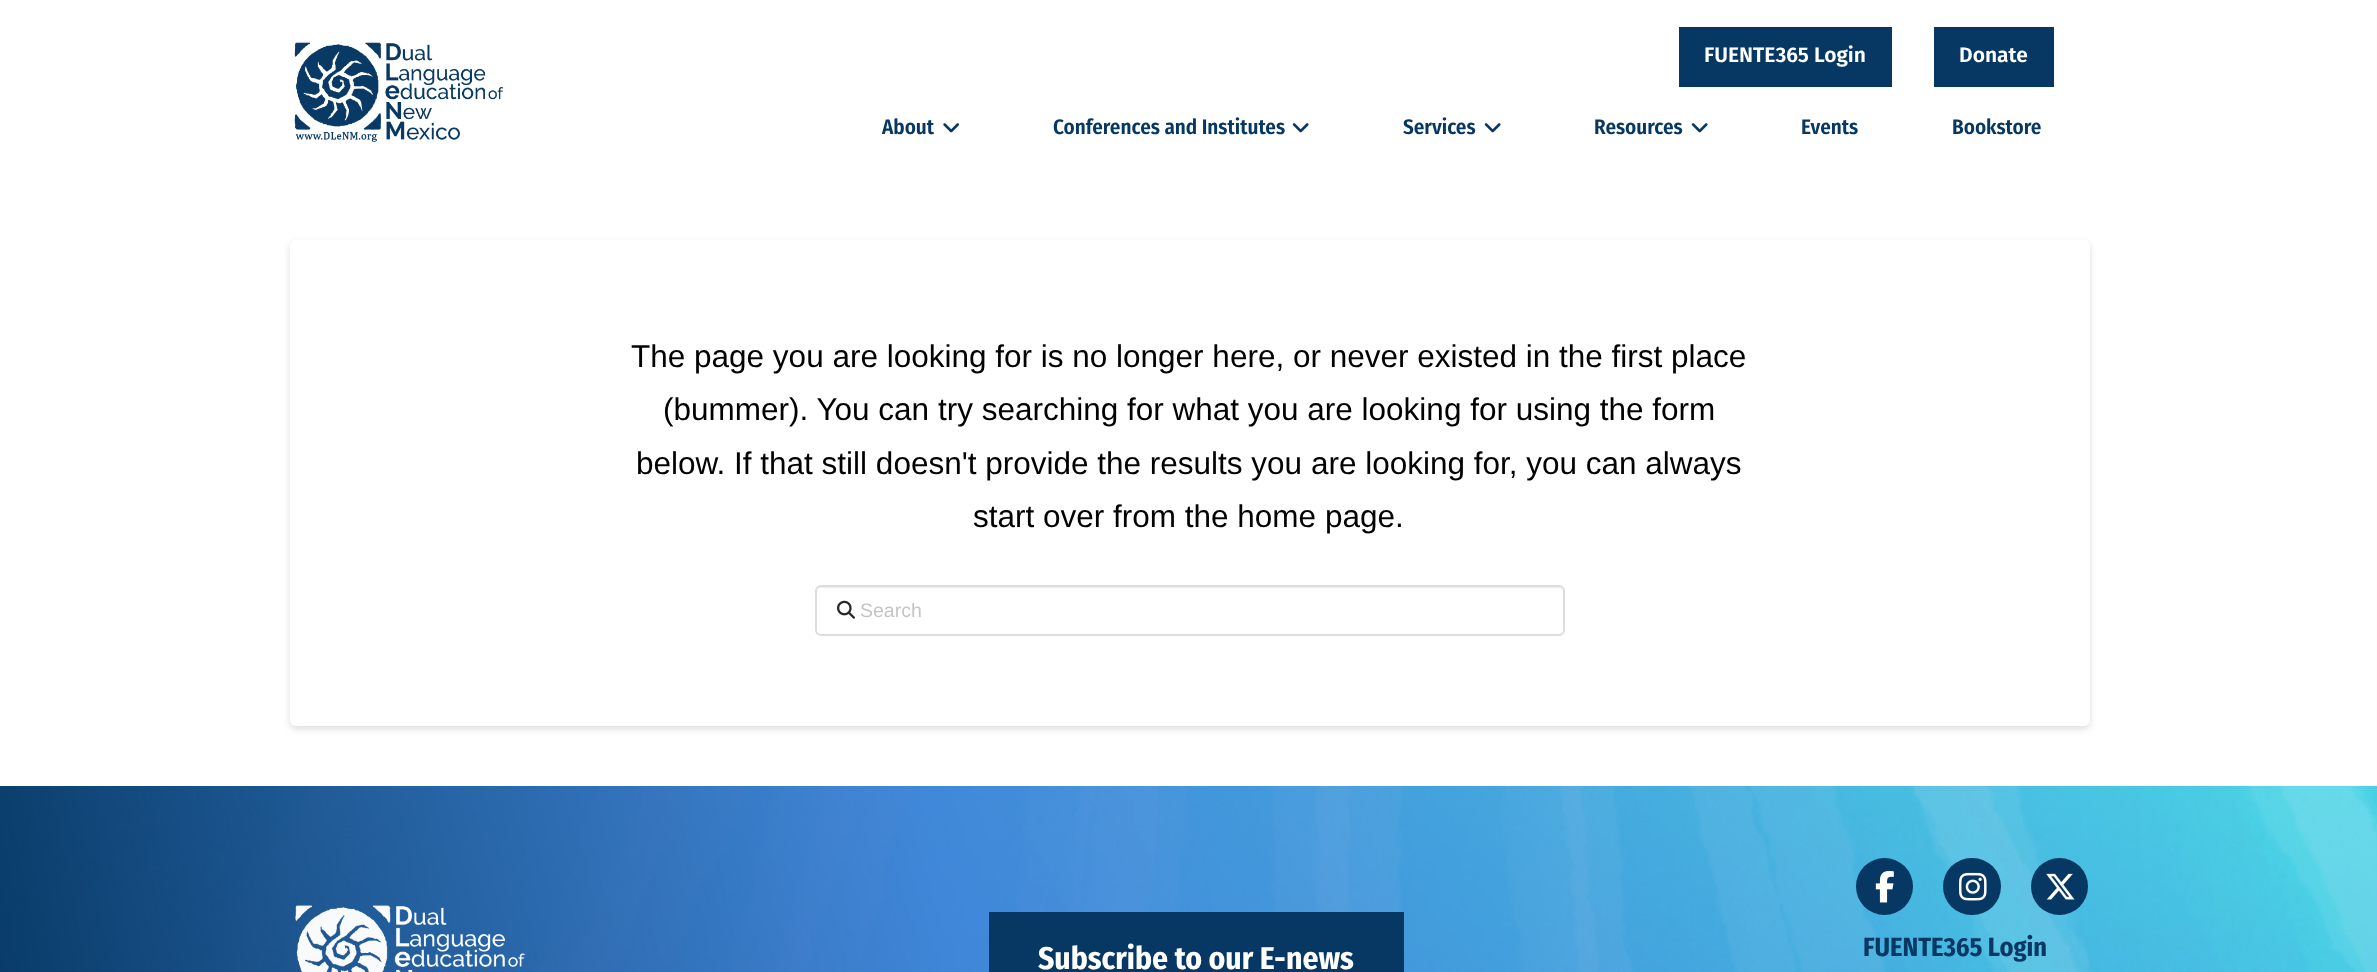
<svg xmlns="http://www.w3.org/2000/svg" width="2377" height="972">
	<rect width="100%" height="100%" fill="#FFFFFF" />
	<image x="294" y="42" width="210" height="100" href="assets/img1.png" />
	<rect x="1679" y="27" width="213" height="60" fill="#063863" />
	<text x="1704" y="62" font-family="Fira Sans" font-size="21" font-weight="600" fill="#FFFFFF">FUENTE365 Login</text>
	<rect x="1934" y="27" width="120" height="60" fill="#063863" />
	<text x="1959" y="62" font-family="Fira Sans" font-size="21" font-weight="600" fill="#FFFFFF">Donate</text>
	<text x="882" y="134" font-family="Fira Sans Condensed" font-size="21" font-weight="600" fill="#063863">About</text>
	<image x="943" y="123" width="16" height="10" href="assets/img2.png" />
	<text x="1053" y="134" font-family="Fira Sans Condensed" font-size="21" font-weight="600" fill="#063863">Conferences and Institutes</text>
	<image x="1292" y="123" width="17" height="10" href="assets/img3.png" />
	<text x="1403" y="134" font-family="Fira Sans Condensed" font-size="21" font-weight="600" fill="#063863">Services</text>
	<image x="1484" y="123" width="17" height="10" href="assets/img3.png" />
	<text x="1594" y="134" font-family="Fira Sans Condensed" font-size="21" font-weight="600" fill="#063863">Resources</text>
	<image x="1691" y="123" width="17" height="10" href="assets/img3.png" />
	<g font-family="Fira Sans Condensed" font-size="21" font-weight="600" fill="#063863">
		<text x="1801" y="134">Events</text>
		<text x="1952" y="134">Bookstore</text>
	</g>
	<rect x="290" y="243" width="1800" height="486" rx="6" fill="#000000" fill-opacity="0.13" filter="blur(3.5px)" />
	<rect x="290" y="240" width="1800" height="486" rx="6" fill="#FFFFFF" />
	<g font-family="Liberation Sans" font-size="31.5" fill="#000000">
		<text x="631" y="367">The page you are looking for is no longer here, or never existed in the first place</text>
		<text x="663" y="420">(bummer). You can try searching for what you are looking for using the form</text>
		<text x="636" y="474">below. If that still doesn't provide the results you are looking for, you can always</text>
		<text x="973" y="527">start over from the home page.</text>
	</g>
	<path d="M820 588H1558C1561 588 1563 590 1563 592C1563 589 1561 587 1558 587H821C818 587 816 589 816 592C816 590 818 588 820 588Z" fill="#ECECEC" />
	<rect x="816" y="586" width="748" height="49" rx="5" fill="none" stroke="#DDDDDD" stroke-width="2" />
	<image x="837" y="600" width="18" height="19" href="assets/img4.png" />
	<text x="860" y="617" font-family="Liberation Sans" font-size="19.5" fill="#C5C5C5">Search</text>
	<image x="0" y="786" width="2377" height="186" href="assets/img5.png" />
	<image x="295" y="905" width="230" height="67" href="assets/img6.png" />
	<rect x="989" y="912" width="415" height="60" fill="#063863" />
	<text x="1038" y="969" font-family="Fira Sans Condensed" font-size="31.5" font-weight="700" fill="#FFFFFF">Subscribe to our E-news</text>
	<circle cx="1884.5" cy="886.5" r="28.5" fill="#063863" />
	<image x="1875" y="870" width="19" height="33" href="assets/img7.png" />
	<rect x="1943" y="858" width="58" height="57" rx="28.5" fill="#063863" />
	<image x="1959" y="872" width="28" height="29" href="assets/img8.png" />
	<circle cx="2059.5" cy="886.5" r="28.5" fill="#063863" />
	<image x="2046" y="873" width="29" height="27" href="assets/img9.png" />
	<text x="1863" y="956" font-family="Fira Sans Condensed" font-size="26.25" font-weight="700" fill="#063863">FUENTE365 Login</text>
</svg>
